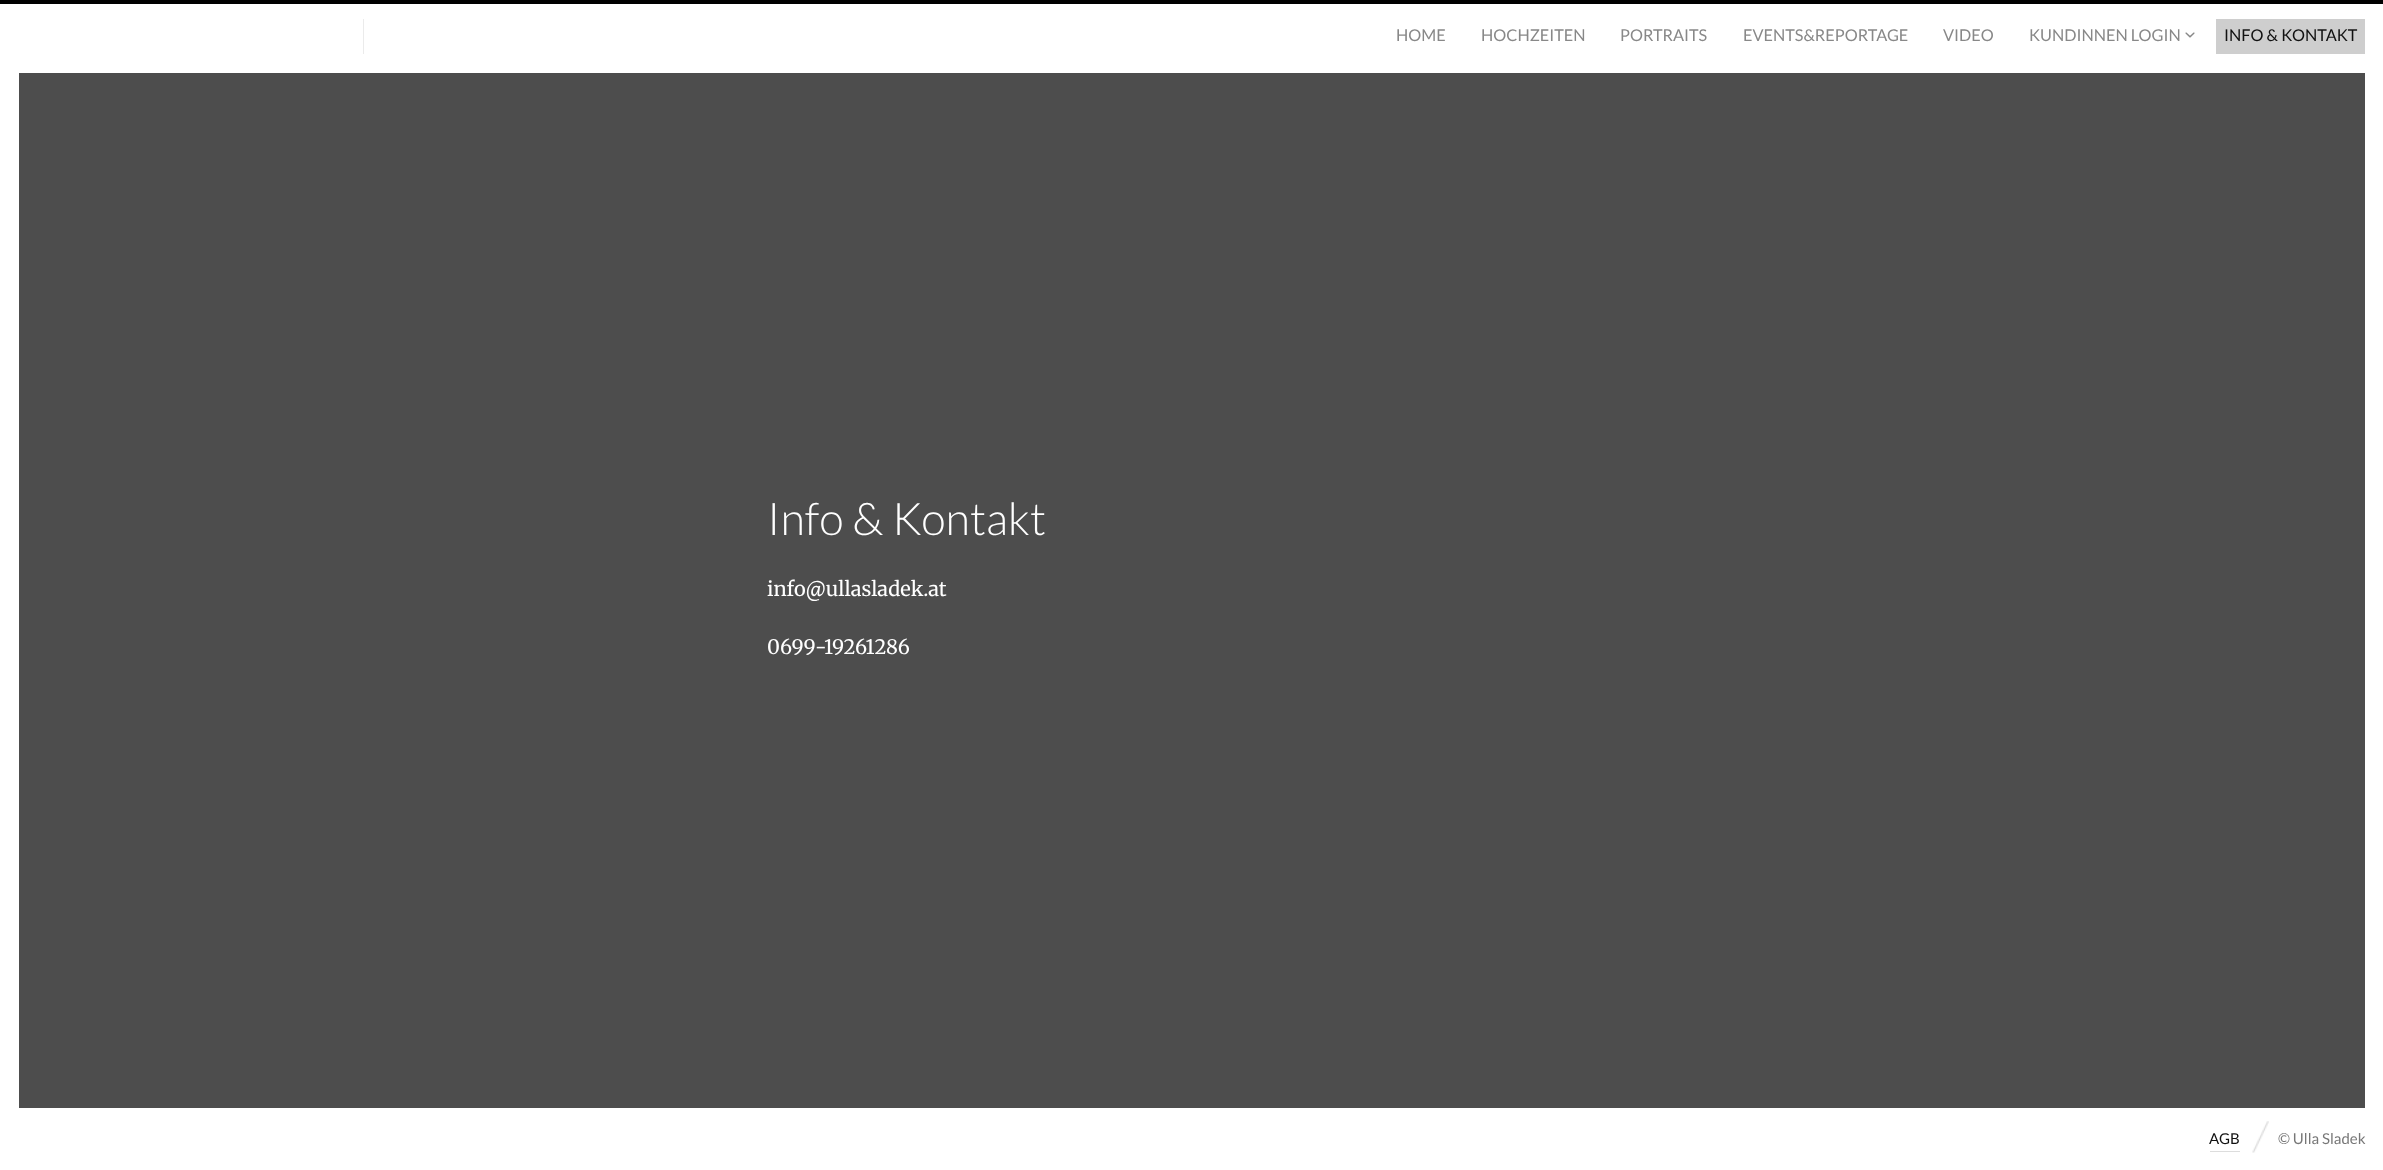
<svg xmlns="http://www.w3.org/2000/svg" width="2383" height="1170">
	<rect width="100%" height="100%" fill="#FFFFFF" />
	<rect x="0" y="0" width="2383" height="4" fill="#000000" />
	<rect x="363" y="19" width="1" height="35" fill="#EBEBEB" />
	<g font-family="Lato" font-size="16.25" fill="#888888">
		<text x="1396" y="41">HOME</text>
		<text x="1481" y="41">HOCHZEITEN</text>
		<text x="1620" y="41">PORTRAITS</text>
		<text x="1743" y="41">EVENTS&amp;REPORTAGE</text>
		<text x="1943" y="41">VIDEO</text>
		<text x="2029" y="41">KUNDINNEN LOGIN</text>
	</g>
	<image x="2185" y="32" width="10" height="6" href="assets/img1.png" />
	<rect x="2216" y="19" width="149" height="35" fill="#CECECE" />
	<text x="2224" y="41" font-family="Lato" font-size="16.25" fill="#111111">INFO &amp; KONTAKT</text>
	<rect x="19" y="73" width="2346" height="1035" fill="#4D4D4D" />
	<text x="767" y="535" font-family="Lato" font-size="45" font-weight="300" fill="#FFFFFF">Info &amp; Kontakt</text>
	<g font-family="Merriweather" font-size="20" font-weight="300" fill="#FFFFFF">
		<text x="767" y="596">info@ullasladek.at</text>
		<text x="767" y="654">0699-19261286</text>
	</g>
	<rect x="2210" y="1151" width="30" height="1" fill="#DDDDDD" />
	<text x="2209" y="1144" font-family="Lato" font-size="15" fill="#111111">AGB</text>
	<image x="2252" y="1121" width="17" height="32" href="assets/img2.png" />
	<text x="2278" y="1144" font-family="Lato" font-size="15" fill="#777777">© Ulla Sladek</text>
</svg>
